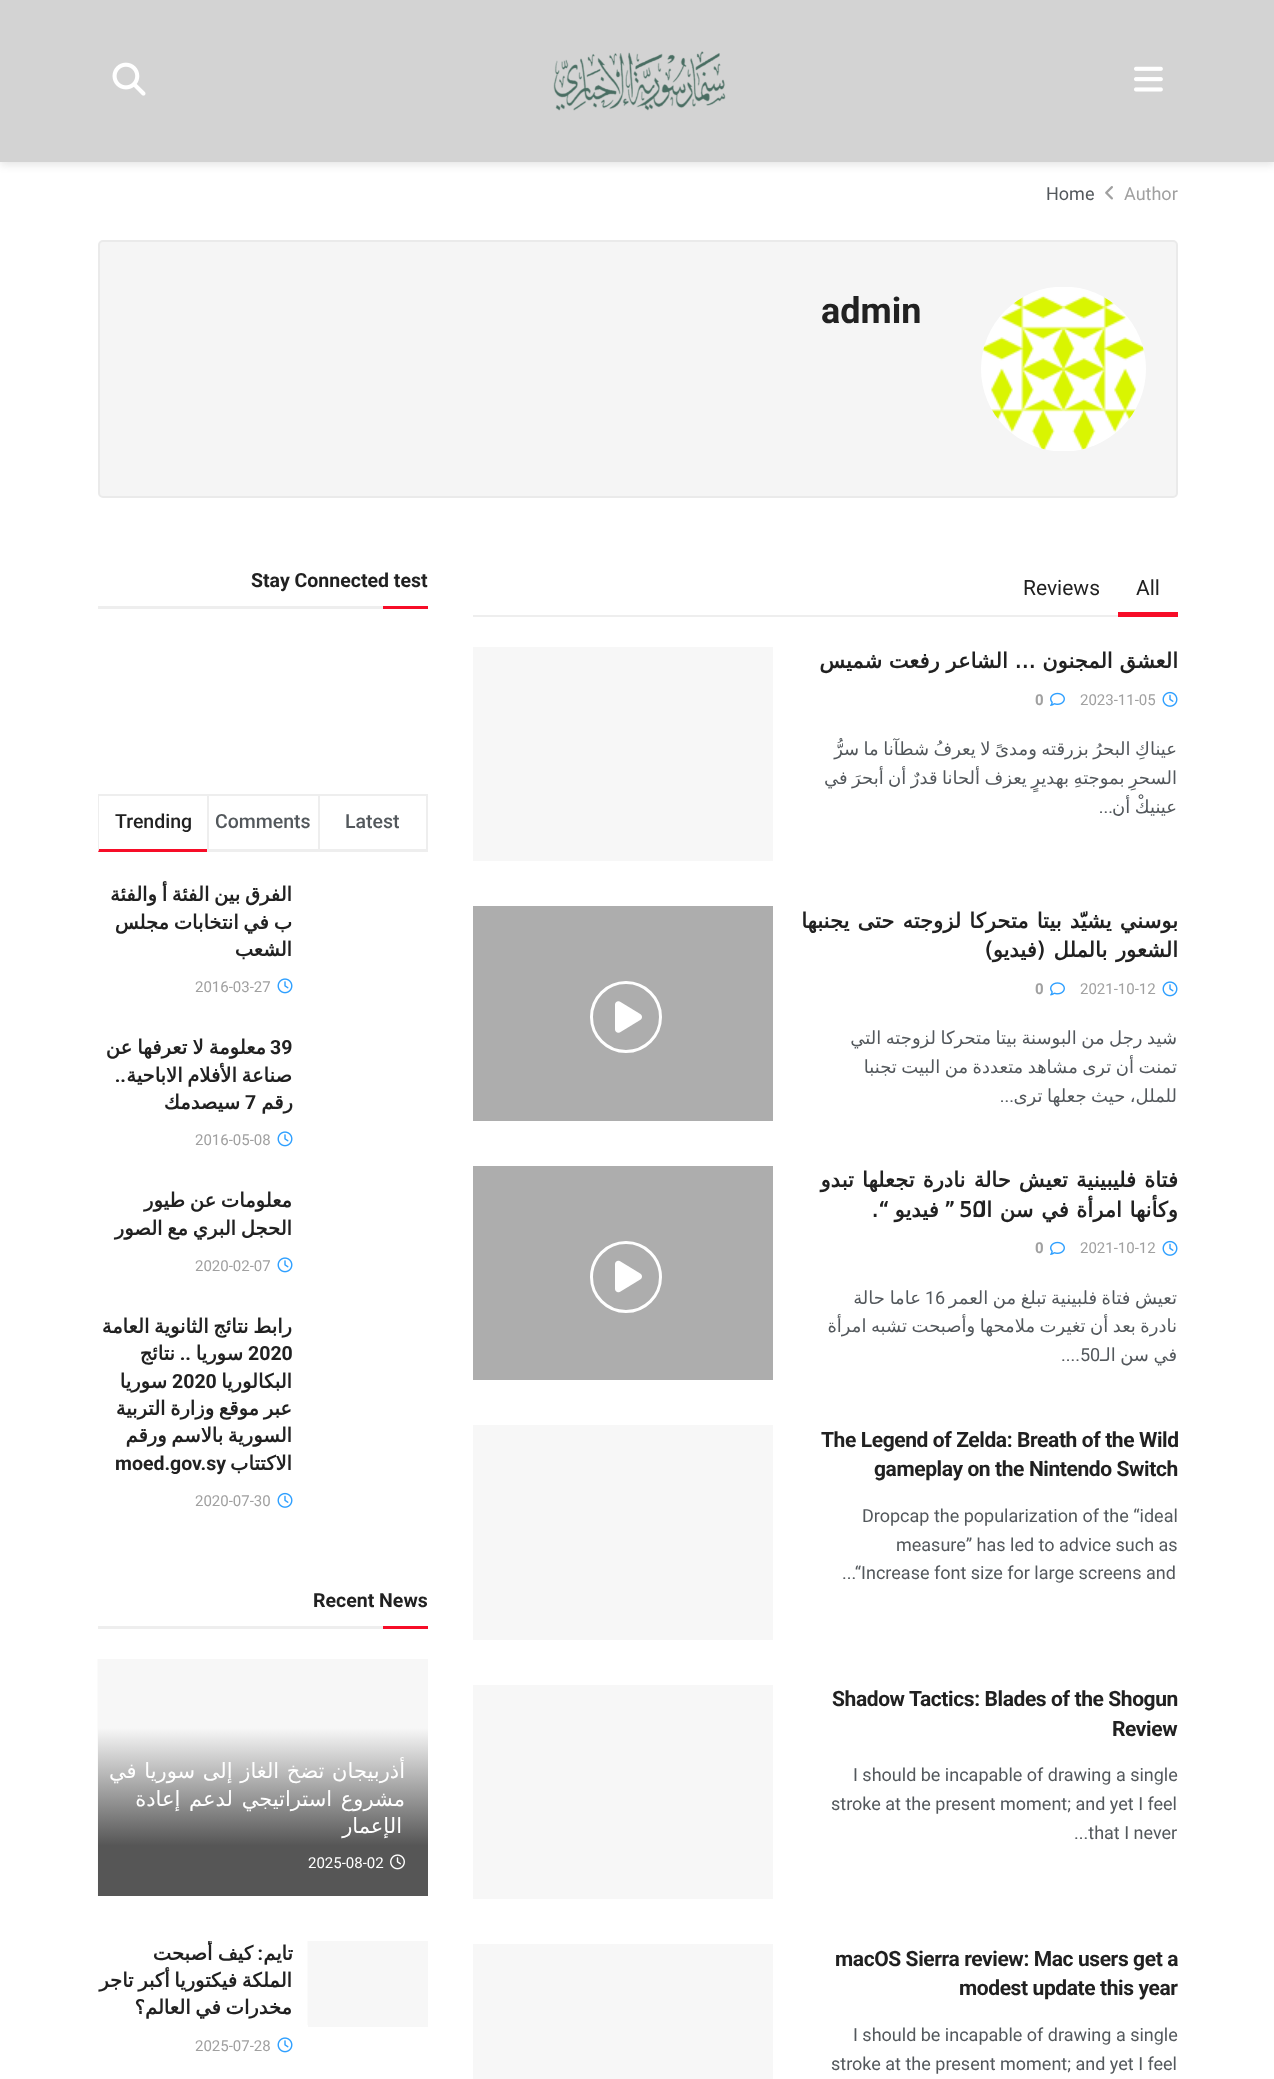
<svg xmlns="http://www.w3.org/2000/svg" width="1274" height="2079">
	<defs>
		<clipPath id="clip1"><rect x="818" y="647" width="360" height="175" /></clipPath>
		<clipPath id="clip2"><rect x="818" y="906" width="360" height="206" /></clipPath>
		<clipPath id="clip3"><rect x="818" y="1166" width="360" height="205" /></clipPath>
		<linearGradient id="g1" gradientUnits="userSpaceOnUse" x1="263" y1="1728" x2="263" y2="1896"><stop offset="0" stop-color="#F7F7F7" /><stop offset="0.7" stop-color="#565656" /></linearGradient>
		<clipPath id="clip4"><rect x="98" y="1941" width="330" height="123" /></clipPath>
	</defs>
	<rect width="100%" height="100%" fill="#FFFFFF" />
	<rect x="0" y="3" width="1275" height="162" fill="#000000" fill-opacity="0.1" filter="blur(4.5px)" />
	<rect x="0" y="0" width="1274" height="162" fill="#D3D3D3" />
	<image x="1134" y="66" width="29" height="26" href="assets/img1.png" />
	<image x="553" y="51" width="173" height="60" href="assets/img2.png" />
	<image x="112" y="62" width="34" height="34" href="assets/img3.png" />
	<text x="1124" y="200" font-family="Roboto" font-size="18" fill="#A0A0A0">Author</text>
	<image x="1105" y="186" width="8" height="14" href="assets/img4.png" />
	<text x="1046" y="200" font-family="Roboto" font-size="18" fill="#53585C">Home</text>
	<rect x="99" y="241" width="1078" height="256" rx="4" fill="#F5F5F5" stroke="#EAEAEA" stroke-width="2" />
	<image x="981" y="287" width="165" height="164" href="assets/img5.png" />
	<text x="821" y="323" font-family="Roboto" font-size="36" font-weight="700" fill="#212121">admin</text>
	<rect x="473" y="615" width="645" height="2" fill="#EEEEEE" />
	<text x="1136" y="595" font-family="Roboto" font-size="21" fill="#212121">All</text>
	<rect x="1118" y="612" width="60" height="5" fill="#F70D28" />
	<text x="1023" y="595" font-family="Roboto" font-size="21" fill="#212121">Reviews</text>
	<text x="1178" y="668" font-family="DejaVu Sans" font-size="21" font-weight="700" letter-spacing="-0.4" direction="rtl" fill="#212121">العشق المجنون … الشاعر رفعت شميس</text>
	<image x="1162" y="691" width="16" height="16" href="assets/img6.png" />
	<text x="1080" y="705" font-family="Roboto" font-size="15" fill="#A0A0A0">2023-11-05</text>
	<image x="1050" y="692" width="15" height="14" href="assets/img7.png" />
	<text x="1035" y="705" font-family="Roboto" font-size="15" font-weight="700" fill="#A0A0A0">0</text>
	<g clip-path="url(#clip1)">
		<g font-family="DejaVu Sans" font-size="18" direction="rtl" fill="#53585C">
			<text x="1177" y="755" word-spacing="-1.25">عيناكِ البحرُ بزرقته ومدىً لا يعرفُ شطآنا ما سرُّ</text>
			<text x="1177" y="784" word-spacing="-1.25">السحرِ بموجتهِ بهديرٍ يعزف ألحانا قدرٌ أن أبحرَ في</text>
		</g>
	</g>
	<text x="1177" y="813" word-spacing="-1.25" font-family="DejaVu Sans" font-size="18" direction="rtl" fill="#53585C">عينيكْ أن</text>
	<text x="1113" y="813" font-family="Roboto" font-size="18" direction="rtl" fill="#53585C">...</text>
	<rect x="473" y="647" width="300" height="214" fill="#F7F7F7" />
	<g font-family="DejaVu Sans" font-size="21" font-weight="700" letter-spacing="-0.4" direction="rtl" fill="#212121">
		<text x="1178" y="928" word-spacing="1.5">بوسني يشيّد بيتا متحركا لزوجته حتى يجنبها</text>
		<text x="1178" y="957" word-spacing="2">الشعور بالملل (فيديو)</text>
	</g>
	<image x="1162" y="981" width="16" height="16" href="assets/img8.png" />
	<text x="1080" y="994" font-family="Roboto" font-size="15" fill="#A0A0A0">2021-10-12</text>
	<image x="1050" y="982" width="15" height="14" href="assets/img9.png" />
	<text x="1035" y="994" font-family="Roboto" font-size="15" font-weight="700" fill="#A0A0A0">0</text>
	<g clip-path="url(#clip2)">
		<g font-family="DejaVu Sans" font-size="18" direction="rtl" fill="#53585C">
			<text x="1177" y="1044" word-spacing="-1.25">شيد رجل من البوسنة بيتا متحركا لزوجته التي</text>
			<text x="1177" y="1073" word-spacing="-1.25">تمنت أن ترى مشاهد متعددة من البيت تجنبا</text>
			<text x="1177" y="1102" word-spacing="-1.25">للملل، حيث جعلها ترى</text>
		</g>
	</g>
	<text x="1014" y="1102" font-family="Roboto" font-size="18" direction="rtl" fill="#53585C">...</text>
	<rect x="473" y="906" width="300" height="215" fill="#ADADAD" />
	<circle cx="626" cy="1017" r="34.5" fill="none" stroke="#FFFFFF" stroke-width="3" />
	<image x="615" y="1001" width="27" height="32" href="assets/img10.png" />
	<text x="1178" y="1187" word-spacing="1.5" font-family="DejaVu Sans" font-size="21" font-weight="700" letter-spacing="-0.4" direction="rtl" fill="#212121">فتاة فليبينية تعيش حالة نادرة تجعلها تبدو</text>
	<text x="959" y="1217" font-family="DejaVu Sans" font-size="21" font-weight="700" letter-spacing="-0.4" fill="#212121">50</text>
	<g font-family="DejaVu Sans" font-size="21" font-weight="700" letter-spacing="-0.4" direction="rtl" fill="#212121">
		<text x="1178" y="1217" word-spacing="1">وكأنها امرأة في سن الـ</text>
		<text x="955" y="1217" word-spacing="-1.25">” فيديو “.</text>
	</g>
	<image x="1162" y="1240" width="16" height="16" href="assets/img6.png" />
	<text x="1080" y="1253" font-family="Roboto" font-size="15" fill="#A0A0A0">2021-10-12</text>
	<image x="1050" y="1241" width="15" height="14" href="assets/img7.png" />
	<text x="1035" y="1253" font-family="Roboto" font-size="15" font-weight="700" fill="#A0A0A0">0</text>
	<g clip-path="url(#clip3)">
		<text x="1177" y="1304" word-spacing="-1.25" font-family="DejaVu Sans" font-size="18" direction="rtl" fill="#53585C">تعيش فتاة فلبينية تبلغ من العمر</text>
	</g>
	<text x="925" y="1304" font-family="Roboto" font-size="18" fill="#53585C">16</text>
	<text x="921" y="1304" word-spacing="-1" font-family="DejaVu Sans" font-size="18" direction="rtl" fill="#53585C">عاما حالة</text>
	<g clip-path="url(#clip3)">
		<g font-family="DejaVu Sans" font-size="18" direction="rtl" fill="#53585C">
			<text x="1177" y="1332" word-spacing="-1.25">نادرة بعد أن تغيرت ملامحها وأصبحت تشبه امرأة</text>
			<text x="1177" y="1361" word-spacing="-1.25">في سن الـ</text>
		</g>
	</g>
	<text x="1061" y="1361" font-family="Roboto" font-size="18" fill="#53585C">....50</text>
	<rect x="473" y="1166" width="300" height="214" fill="#ADADAD" />
	<circle cx="626" cy="1277" r="34.5" fill="none" stroke="#FFFFFF" stroke-width="3" />
	<image x="615" y="1260" width="27" height="33" href="assets/img11.png" />
	<g font-family="Roboto" font-size="21" font-weight="700" letter-spacing="-0.4" fill="#212121">
		<text x="821" y="1447">The Legend of Zelda: Breath of the Wild</text>
		<text x="874" y="1476">gameplay on the Nintendo Switch</text>
	</g>
	<g font-family="Roboto" font-size="18" fill="#53585C">
		<text x="862" y="1522">Dropcap the popularization of the “ideal</text>
		<text x="896" y="1551">measure” has led to advice such as</text>
		<text x="842" y="1579">...“Increase font size for large screens and</text>
	</g>
	<rect x="473" y="1425" width="300" height="215" fill="#F7F7F7" />
	<g font-family="Roboto" font-size="21" font-weight="700" letter-spacing="-0.4" fill="#212121">
		<text x="832" y="1706">Shadow Tactics: Blades of the Shogun</text>
		<text x="1112" y="1736">Review</text>
	</g>
	<g font-family="Roboto" font-size="18" fill="#53585C">
		<text x="853" y="1781">I should be incapable of drawing a single</text>
		<text x="831" y="1810">stroke at the present moment; and yet I feel</text>
		<text x="1074" y="1839">...that I never</text>
	</g>
	<rect x="473" y="1685" width="300" height="214" fill="#F7F7F7" />
	<g font-family="Roboto" font-size="21" font-weight="700" letter-spacing="-0.4" fill="#212121">
		<text x="835" y="1966">macOS Sierra review: Mac users get a</text>
		<text x="959" y="1995">modest update this year</text>
	</g>
	<g font-family="Roboto" font-size="18" fill="#53585C">
		<text x="853" y="2041">I should be incapable of drawing a single</text>
		<text x="831" y="2070">stroke at the present moment; and yet I feel</text>
	</g>
	<rect x="473" y="1944" width="300" height="135" fill="#F7F7F7" />
	<rect x="98" y="606" width="285" height="3" fill="#EEEEEE" />
	<text x="251" y="587" font-family="Roboto" font-size="19.5" font-weight="700" fill="#212121">Stay Connected test</text>
	<rect x="383" y="606" width="45" height="3" fill="#F70D28" />
	<rect x="98" y="794" width="330" height="2" fill="#EEEEEE" />
	<rect x="426" y="794" width="2" height="58" fill="#EEEEEE" />
	<rect x="318" y="849" width="110" height="3" fill="#EEEEEE" />
	<rect x="318" y="794" width="2" height="58" fill="#EEEEEE" />
	<text x="345" y="828" font-family="Roboto" font-size="19.5" font-weight="500" fill="#53585C">Latest</text>
	<rect x="207" y="849" width="111" height="3" fill="#EEEEEE" />
	<rect x="207" y="794" width="2" height="58" fill="#EEEEEE" />
	<text x="215" y="828" font-family="Roboto" font-size="19.5" font-weight="500" fill="#53585C">Comments</text>
	<path d="M207 852H98L99 849H207Z" fill="#F70D28" />
	<path d="M98 852V794L99 795V849Z" fill="#EEEEEE" />
	<text x="115" y="828" font-family="Roboto" font-size="19.5" font-weight="500" fill="#212121">Trending</text>
	<g font-family="DejaVu Sans" font-size="19.5" font-weight="700" direction="rtl" fill="#212121">
		<text x="292" y="901" word-spacing="-1.5">الفرق بين الفئة أ والفئة</text>
		<text x="292" y="929" word-spacing="-1.5">ب في انتخابات مجلس</text>
		<text x="292" y="956">الشعب</text>
	</g>
	<image x="277" y="978" width="16" height="16" href="assets/img8.png" />
	<text x="195" y="992" font-family="Roboto" font-size="15" fill="#A0A0A0">2016-03-27</text>
	<text x="270" y="1054" font-family="Roboto" font-size="19.5" font-weight="700" fill="#212121">39</text>
	<g font-family="DejaVu Sans" font-size="19.5" font-weight="700" direction="rtl" fill="#212121">
		<text x="266" y="1054" word-spacing="-1">معلومة لا تعرفها عن</text>
		<text x="292" y="1082" word-spacing="-1.5">صناعة الأفلام الاباحية</text>
	</g>
	<text x="126" y="1082" font-family="Roboto" font-size="19.5" font-weight="700" direction="rtl" fill="#212121">..</text>
	<text x="293" y="1109" font-family="DejaVu Sans" font-size="19.5" font-weight="700" direction="rtl" fill="#212121">رقم</text>
	<text x="245" y="1109" font-family="Roboto" font-size="19.5" font-weight="700" fill="#212121">7</text>
	<text x="240" y="1109" font-family="DejaVu Sans" font-size="19.5" font-weight="700" direction="rtl" fill="#212121">سيصدمك</text>
	<image x="277" y="1131" width="16" height="16" href="assets/img8.png" />
	<text x="195" y="1145" font-family="Roboto" font-size="15" fill="#A0A0A0">2016-05-08</text>
	<g font-family="DejaVu Sans" font-size="19.5" font-weight="700" direction="rtl" fill="#212121">
		<text x="292" y="1207" word-spacing="-1.5">معلومات عن طيور</text>
		<text x="292" y="1235" word-spacing="-1.5">الحجل البري مع الصور</text>
	</g>
	<image x="277" y="1257" width="16" height="16" href="assets/img8.png" />
	<text x="195" y="1271" font-family="Roboto" font-size="15" fill="#A0A0A0">2020-02-07</text>
	<text x="292" y="1333" word-spacing="-1.5" font-family="DejaVu Sans" font-size="19.5" font-weight="700" direction="rtl" fill="#212121">رابط نتائج الثانوية العامة</text>
	<text x="248" y="1360" font-family="Roboto" font-size="19.5" font-weight="700" fill="#212121">2020</text>
	<text x="243" y="1360" font-family="DejaVu Sans" font-size="19.5" font-weight="700" direction="rtl" fill="#212121">سوريا</text>
	<text x="191" y="1360" font-family="Roboto" font-size="19.5" font-weight="700" direction="rtl" fill="#212121">..</text>
	<g font-family="DejaVu Sans" font-size="19.5" font-weight="700" direction="rtl" fill="#212121">
		<text x="175" y="1360">نتائج</text>
		<text x="292" y="1388">البكالوريا</text>
	</g>
	<text x="172" y="1388" font-family="Roboto" font-size="19.5" font-weight="700" fill="#212121">2020</text>
	<g font-family="DejaVu Sans" font-size="19.5" font-weight="700" direction="rtl" fill="#212121">
		<text x="167" y="1388">سوريا</text>
		<text x="292" y="1415" word-spacing="-1.5">عبر موقع وزارة التربية</text>
		<text x="292" y="1442" word-spacing="-1.5">السورية بالاسم ورقم</text>
		<text x="292" y="1470">الاكتتاب</text>
	</g>
	<text x="115" y="1470" font-family="Roboto" font-size="19.5" font-weight="700" fill="#212121">moed.gov.sy</text>
	<image x="277" y="1492" width="16" height="16" href="assets/img6.png" />
	<text x="195" y="1506" font-family="Roboto" font-size="15" fill="#A0A0A0">2020-07-30</text>
	<rect x="98" y="1626" width="285" height="3" fill="#EEEEEE" />
	<text x="313" y="1607" font-family="Roboto" font-size="19.5" font-weight="700" fill="#212121">Recent News</text>
	<rect x="383" y="1626" width="45" height="3" fill="#F70D28" />
	<rect x="98" y="1659" width="330" height="69" fill="#F7F7F7" />
	<image x="97" y="1659" width="1" height="237" href="assets/img12.png" />
	<rect x="98" y="1728" width="330" height="168" fill="url(#g1)" />
	<g font-family="DejaVu Sans" font-size="21" letter-spacing="-0.4" direction="rtl" fill="#FFFFFF">
		<text x="405" y="1778" word-spacing="1">أذربيجان تضخ الغاز إلى سوريا في</text>
		<text x="405" y="1806" word-spacing="2">مشروع استراتيجي لدعم إعادة</text>
		<text x="402" y="1833">الإعمار</text>
	</g>
	<image x="390" y="1854" width="15" height="16" href="assets/img13.png" />
	<text x="308" y="1868" font-family="Roboto" font-size="15" fill="#FFFFFF">2025-08-02</text>
	<rect x="308" y="1941" width="120" height="86" fill="#F7F7F7" />
	<rect x="307" y="1941" width="1" height="84" fill="#FBFBFB" />
	<text x="293" y="1960" font-family="DejaVu Sans" font-size="19.5" font-weight="700" direction="rtl" fill="#212121">تايم</text>
	<text x="263" y="1960" font-family="Roboto" font-size="19.5" font-weight="700" direction="rtl" fill="#212121">:</text>
	<g clip-path="url(#clip4)">
		<text x="253" y="1960" word-spacing="-1" font-family="DejaVu Sans" font-size="19.5" font-weight="700" direction="rtl" fill="#212121">كيف أصبحت</text>
	</g>
	<g font-family="DejaVu Sans" font-size="19.5" font-weight="700" direction="rtl" fill="#212121">
		<text x="292" y="1987" word-spacing="-1.5">الملكة فيكتوريا أكبر تاجر</text>
		<text x="292" y="2014" word-spacing="-1.5">مخدرات في العالم؟</text>
	</g>
	<image x="277" y="2037" width="16" height="16" href="assets/img8.png" />
	<text x="195" y="2051" font-family="Roboto" font-size="15" fill="#A0A0A0">2025-07-28</text>
</svg>
